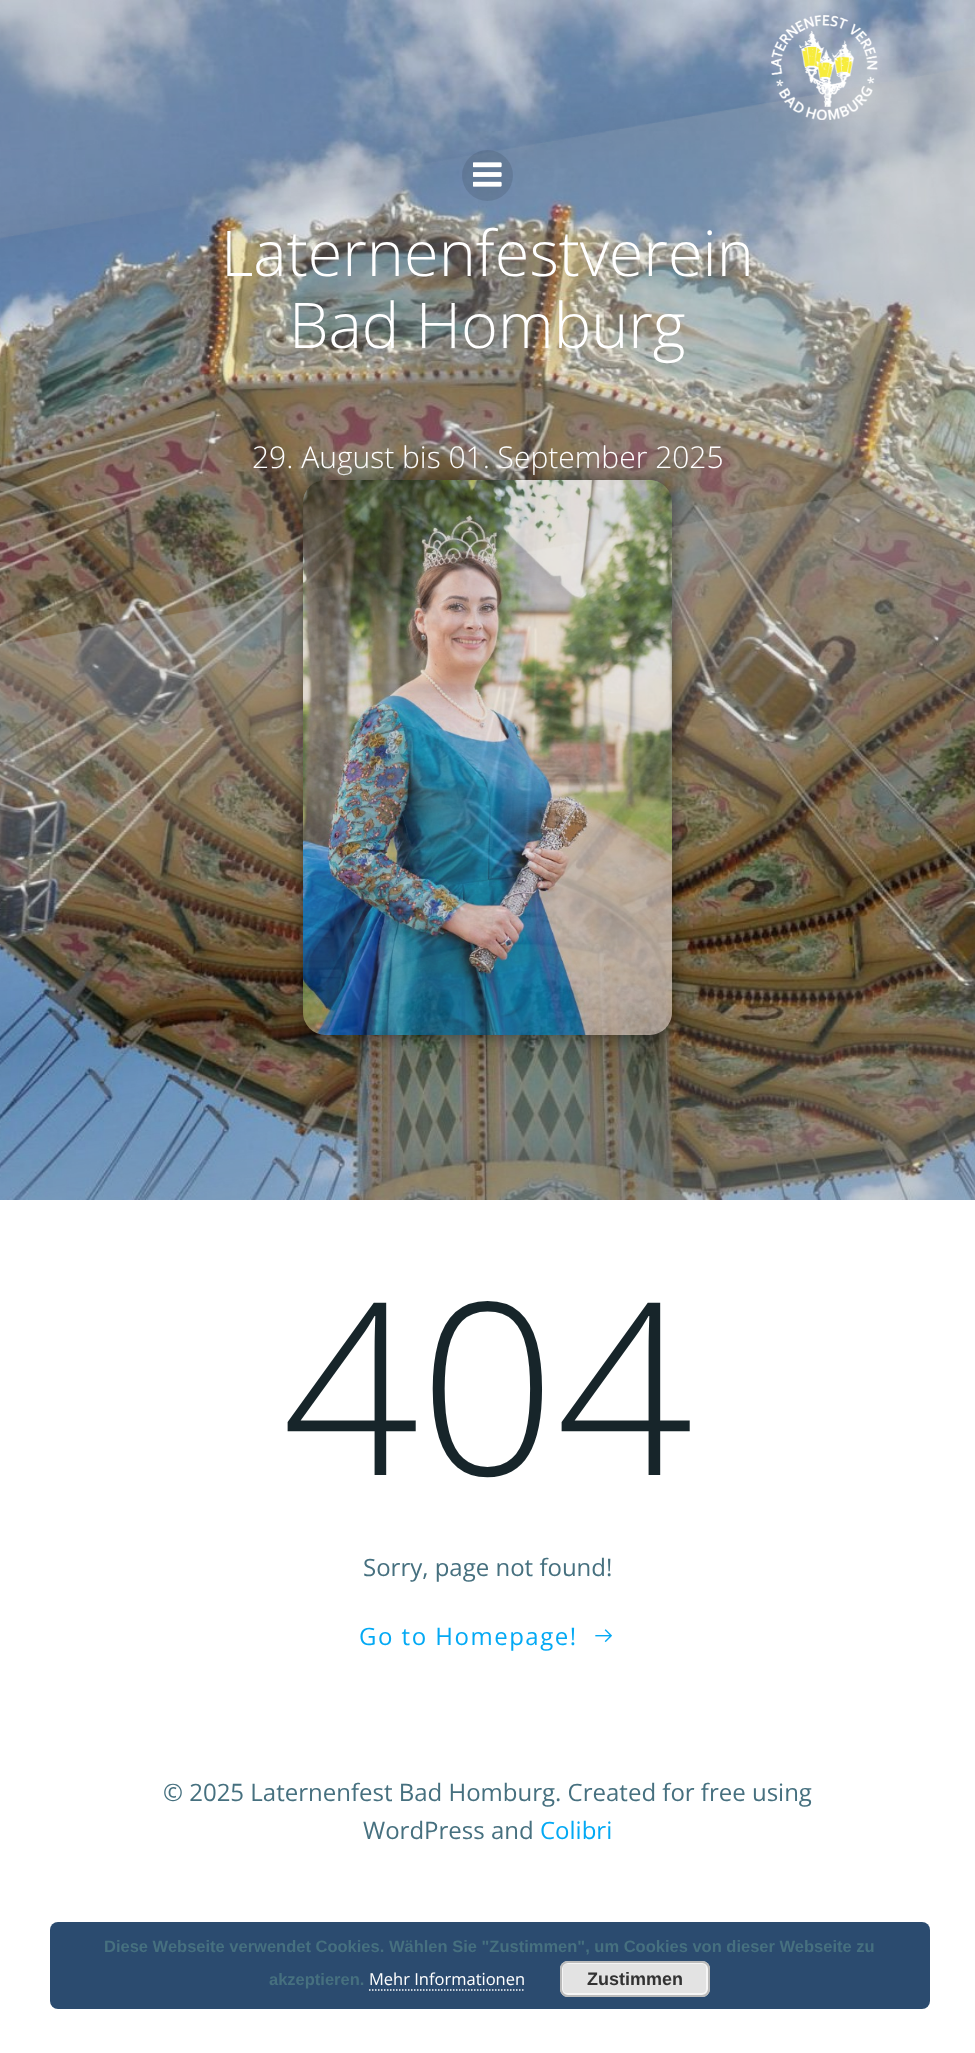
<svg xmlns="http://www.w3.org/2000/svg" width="975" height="2053">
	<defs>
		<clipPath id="clip1"><path d="M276 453H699V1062H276ZM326 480H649C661.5 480 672 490.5 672 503V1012C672 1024.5 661.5 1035 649 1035H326C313.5 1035 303 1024.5 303 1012V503C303 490.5 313.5 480 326 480Z" clip-rule="evenodd" /></clipPath>
	</defs>
	<rect width="100%" height="100%" fill="#FFFFFF" />
	<image x="0" y="0" width="975" height="1200" href="assets/img3.png" />
	<image x="0" y="0" width="975" height="1200" href="assets/img4.png" />
	<image x="771" y="15" width="107" height="105" href="assets/img1.png" />
	<circle cx="487.5" cy="175.5" r="25.5" fill="#000000" fill-opacity="0.1" />
	<image x="473" y="162" width="29" height="25" href="assets/img2.png" />
	<g font-family="Open Sans" font-size="63" font-weight="300" fill="#FFFFFF">
		<text x="221" y="276">Laternenfestverein</text>
		<text x="289" y="348">Bad Homburg</text>
	</g>
	<text x="252" y="468" font-family="Open Sans" font-size="30" font-weight="300" fill="#FFFFFF">29. August bis 01. September 2025</text>
	<g clip-path="url(#clip1)">
		<rect x="300" y="477" width="375" height="561" rx="26" fill="#000000" fill-opacity="0.38" filter="blur(7.5px)" />
	</g>
	<image x="303" y="480" width="369" height="555" href="assets/img5.png" />
	<text x="282" y="1475" font-family="Open Sans" font-size="240" font-weight="300" fill="#17252A">404</text>
	<text x="363" y="1576" font-family="Open Sans" font-size="24" fill="#46707F">Sorry, page not found!</text>
	<text x="359" y="1645" font-family="Open Sans" font-size="24" letter-spacing="1.5" fill="#03A9F4">Go to Homepage!</text>
	<image x="595" y="1629" width="17" height="14" href="assets/img6.png" />
	<g font-family="Open Sans" font-size="24" fill="#46707F">
		<text x="163" y="1801">© 2025 Laternenfest Bad Homburg. Created for free using</text>
		<text x="363" y="1839">WordPress and</text>
	</g>
	<text x="540" y="1839" font-family="Open Sans" font-size="24" fill="#03A9F4">Colibri</text>
	<rect x="50" y="1922" width="880" height="87" rx="8" fill="#2B4B6F" />
	<g font-family="Liberation Sans" font-size="16.5" font-weight="700" fill="#46707F">
		<text x="104" y="1952">Diese Webseite verwendet Cookies. Wählen Sie "Zustimmen", um Cookies von dieser Webseite zu</text>
		<text x="269" y="1985">akzeptieren.</text>
	</g>
	<text x="369" y="1985" font-family="Open Sans" font-size="16.5" fill="#FFFFFF">Mehr Informationen</text>
	<path d="M369 1990H525" fill="none" stroke="#FFFFFF" stroke-width="1.5" stroke-dasharray="1.5 1.5" />
	<rect x="560" y="1961" width="150" height="36" rx="8" fill="#E3E3E3" />
	<rect x="562" y="1963" width="145" height="31" rx="5" fill="none" stroke="#F6F6F6" stroke-width="2" />
	<rect x="561" y="1962" width="148" height="34" rx="7" fill="none" stroke="#BBBBBB" stroke-width="2" />
	<text x="587" y="1985" font-family="Liberation Sans" font-size="18" font-weight="700" fill="#333333">Zustimmen</text>
</svg>
